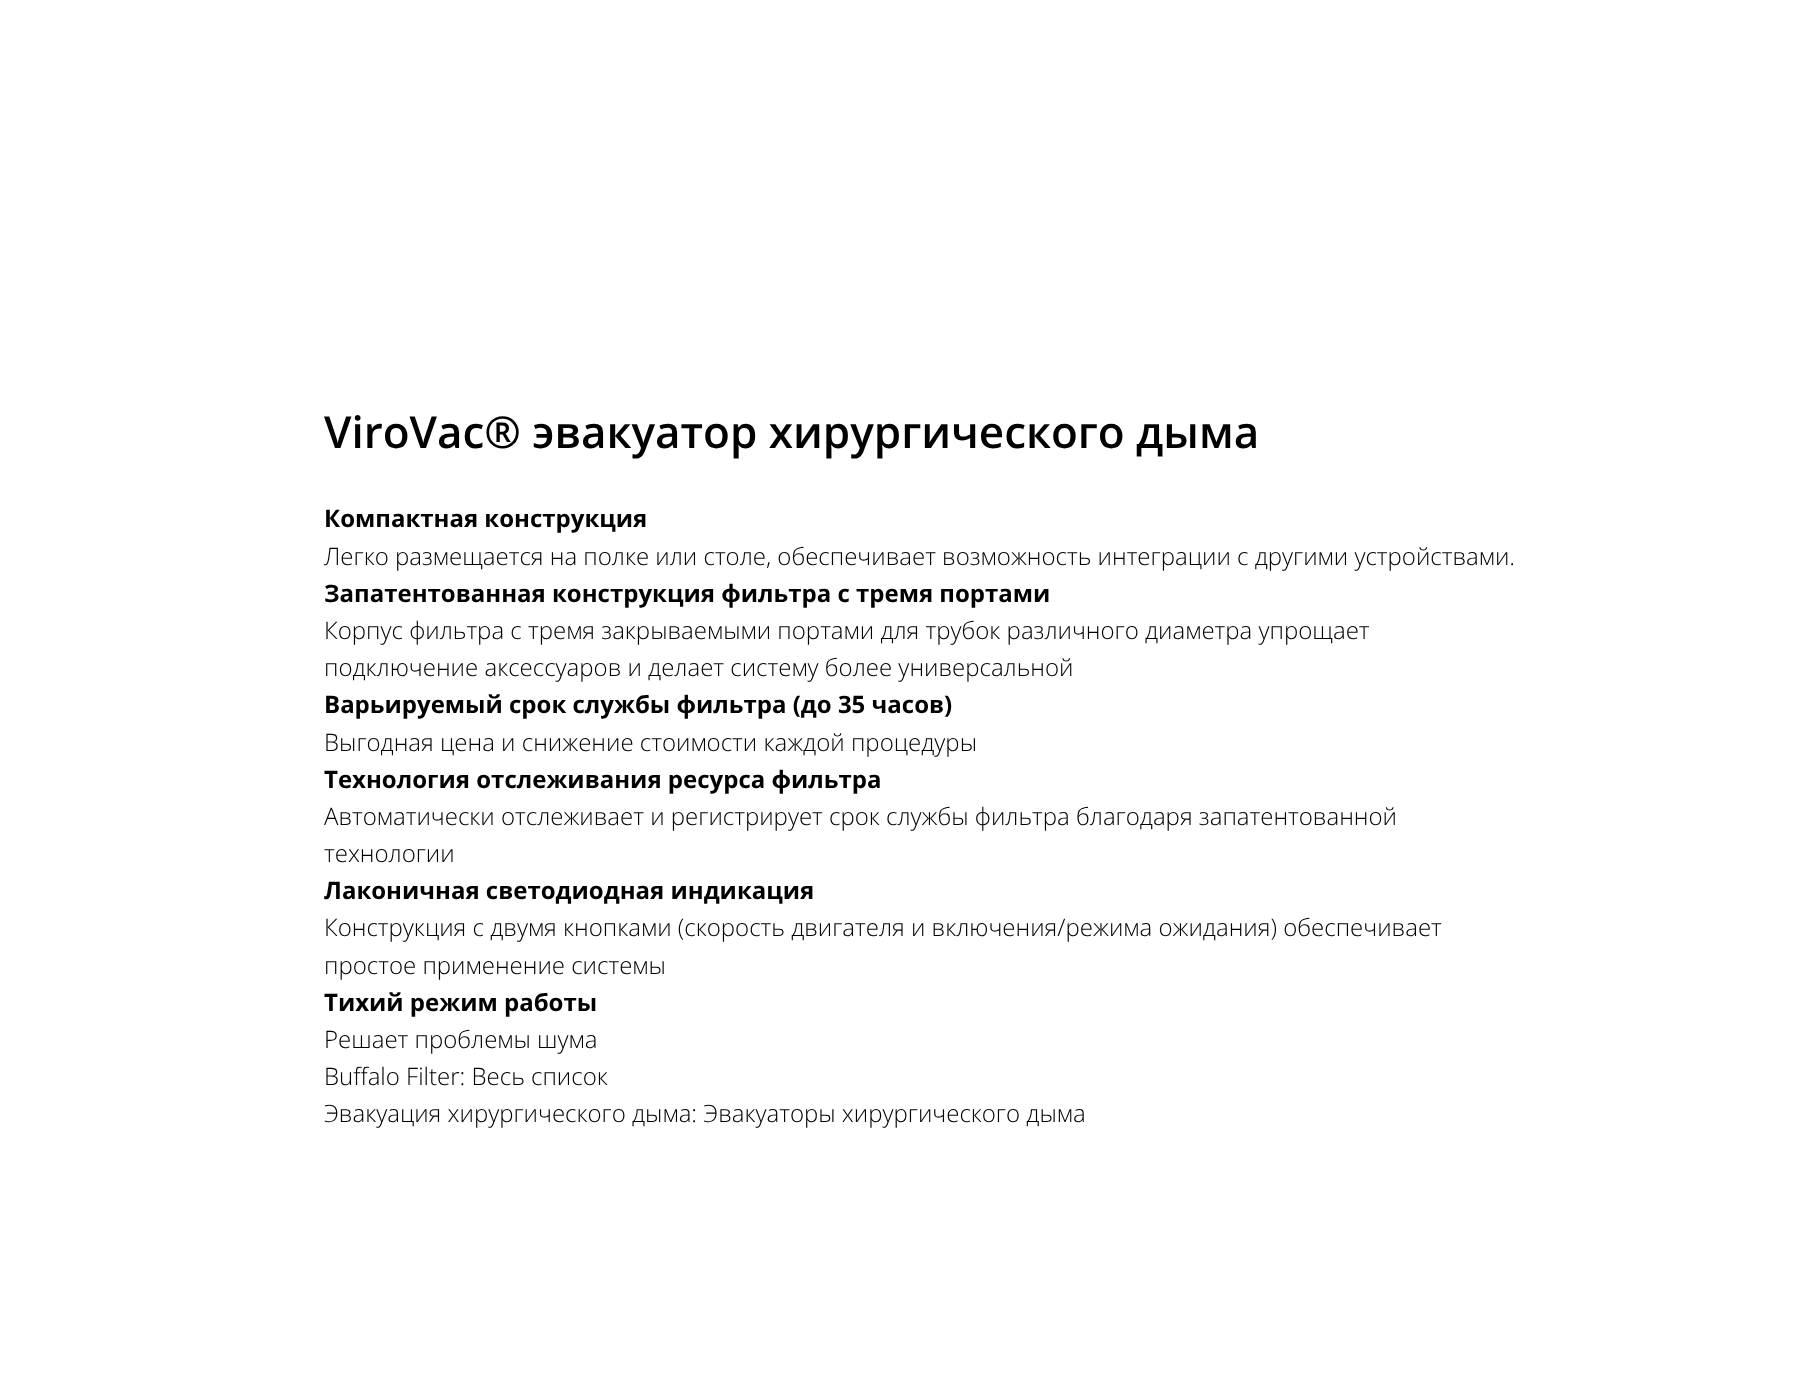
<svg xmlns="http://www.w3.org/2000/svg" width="1808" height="1374">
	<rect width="100%" height="100%" fill="#FFFFFF" />
	<text x="324" y="448" font-family="Open Sans" font-size="44" font-weight="600" fill="#000000">ViroVac® эвакуатор хирургического дыма</text>
	<text x="324" y="527" font-family="Open Sans" font-size="24" font-weight="700" fill="#000000">Компактная конструкция</text>
	<text x="324" y="565" font-family="Open Sans" font-size="24" font-weight="300" fill="#000000">Легко размещается на полке или столе, обеспечивает возможность интеграции с другими устройствами.</text>
	<text x="324" y="602" font-family="Open Sans" font-size="24" font-weight="700" fill="#000000">Запатентованная конструкция фильтра с тремя портами</text>
	<g font-family="Open Sans" font-size="24" font-weight="300" fill="#000000">
		<text x="324" y="639">Корпус фильтра с тремя закрываемыми портами для трубок различного диаметра упрощает</text>
		<text x="324" y="676">подключение аксессуаров и делает систему более универсальной</text>
	</g>
	<text x="324" y="713" font-family="Open Sans" font-size="24" font-weight="700" fill="#000000">Варьируемый срок службы фильтра (до 35 часов)</text>
	<text x="324" y="751" font-family="Open Sans" font-size="24" font-weight="300" fill="#000000">Выгодная цена и снижение стоимости каждой процедуры</text>
	<text x="324" y="788" font-family="Open Sans" font-size="24" font-weight="700" fill="#000000">Технология отслеживания ресурса фильтра</text>
	<g font-family="Open Sans" font-size="24" font-weight="300" fill="#000000">
		<text x="324" y="825">Автоматически отслеживает и регистрирует срок службы фильтра благодаря запатентованной</text>
		<text x="324" y="862">технологии</text>
	</g>
	<text x="324" y="899" font-family="Open Sans" font-size="24" font-weight="700" fill="#000000">Лаконичная светодиодная индикация</text>
	<g font-family="Open Sans" font-size="24" font-weight="300" fill="#000000">
		<text x="324" y="936">Конструкция с двумя кнопками (скорость двигателя и включения/режима ожидания) обеспечивает</text>
		<text x="324" y="974">простое применение системы</text>
	</g>
	<text x="324" y="1011" font-family="Open Sans" font-size="24" font-weight="700" fill="#000000">Тихий режим работы</text>
	<g font-family="Open Sans" font-size="24" font-weight="300" fill="#000000">
		<text x="324" y="1048">Решает проблемы шума</text>
		<text x="324" y="1085">Buffalo Filter: Весь список</text>
		<text x="324" y="1122">Эвакуация хирургического дыма: Эвакуаторы хирургического дыма</text>
	</g>
</svg>
